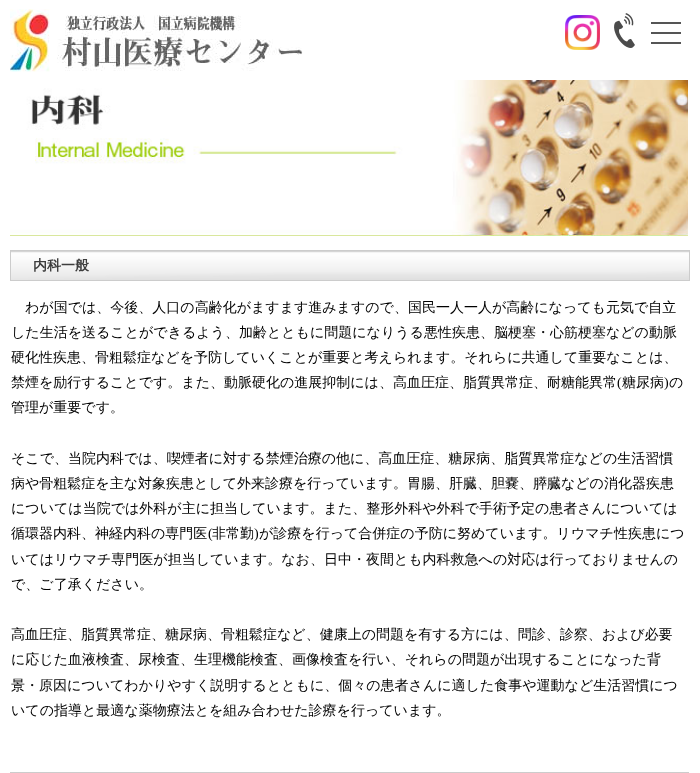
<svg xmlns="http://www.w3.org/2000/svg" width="700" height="773">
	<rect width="100%" height="100%" fill="#FFFFFF" />
	<image x="10" y="9" width="293" height="63" href="assets/img1.png" />
	<image x="565" y="15" width="35" height="35" href="assets/img2.png" />
	<image x="614" y="13" width="21" height="35" href="assets/img3.png" />
	<rect x="651" y="22" width="30" height="2" fill="#555555" />
	<rect x="651" y="32" width="30" height="2" fill="#555555" />
	<rect x="651" y="42" width="30" height="2" fill="#555555" />
	<image x="10" y="80" width="678" height="156" href="assets/img4.png" />
	<image x="11" y="251" width="678" height="29" href="assets/img5.png" />
	<rect x="10.5" y="250.5" width="679" height="30" fill="none" stroke="#CCCCCC" />
	<text x="33" y="270" font-family="WenQuanYi Zen Hei" font-size="14" font-weight="700" fill="#3D3D3D">内科一般</text>
	<g font-family="WenQuanYi Zen Hei" font-size="14" font-weight="500" fill="#000000">
		<text x="25" y="312">わが国では、今後、人口の高齢化がますます進みますので、国民一人一人が高齢になっても元気で自立</text>
		<text x="11" y="337">した生活を送ることができるよう、加齢とともに問題になりうる悪性疾患、脳梗塞・心筋梗塞などの動脈</text>
		<text x="11" y="362">硬化性疾患、骨粗鬆症などを予防していくことが重要と考えられます。それらに共通して重要なことは、</text>
		<text x="11" y="387">禁煙を励行することです。また、動脈硬化の進展抑制には、高血圧症、脂質異常症、耐糖能異常</text>
	</g>
	<text x="617" y="387" font-family="Liberation Serif" font-size="14" fill="#000000">(</text>
	<text x="622" y="387" font-family="WenQuanYi Zen Hei" font-size="14" font-weight="500" fill="#000000">糖尿病</text>
	<text x="664" y="387" font-family="Liberation Serif" font-size="14" fill="#000000">)</text>
	<g font-family="WenQuanYi Zen Hei" font-size="14" font-weight="500" fill="#000000">
		<text x="669" y="387">の</text>
		<text x="11" y="412">管理が重要です。</text>
		<text x="11" y="463">そこで、当院内科では、喫煙者に対する禁煙治療の他に、高血圧症、糖尿病、脂質異常症などの生活習慣</text>
		<text x="11" y="488">病や骨粗鬆症を主な対象疾患として外来診療を行っています。胃腸、肝臓、胆嚢、膵臓などの消化器疾患</text>
		<text x="11" y="513">については当院では外科が主に担当しています。また、整形外科や外科で手術予定の患者さんについては</text>
		<text x="11" y="538">循環器内科、神経内科の専門医</text>
	</g>
	<text x="208" y="538" font-family="Liberation Serif" font-size="14" fill="#000000">(</text>
	<text x="212" y="538" font-family="WenQuanYi Zen Hei" font-size="14" font-weight="500" fill="#000000">非常勤</text>
	<text x="254" y="538" font-family="Liberation Serif" font-size="14" fill="#000000">)</text>
	<g font-family="WenQuanYi Zen Hei" font-size="14" font-weight="500" fill="#000000">
		<text x="259" y="538">が診療を行って合併症の予防に努めています。リウマチ性疾患につ</text>
		<text x="11" y="564">いてはリウマチ専門医が担当しています。なお、日中・夜間とも内科救急への対応は行っておりませんの</text>
		<text x="11" y="589">で、ご了承ください。</text>
		<text x="11" y="639">高血圧症、脂質異常症、糖尿病、骨粗鬆症など、健康上の問題を有する方には、問診、診察、および必要</text>
		<text x="11" y="664">に応じた血液検査、尿検査、生理機能検査、画像検査を行い、それらの問題が出現することになった背</text>
		<text x="11" y="690">景・原因についてわかりやすく説明するとともに、個々の患者さんに適した食事や運動など生活習慣につ</text>
		<text x="11" y="715">いての指導と最適な薬物療法とを組み合わせた診療を行っています。</text>
	</g>
	<rect x="10.5" y="772.5" width="678" height="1" fill="none" stroke="#CCCCCC" />
</svg>
